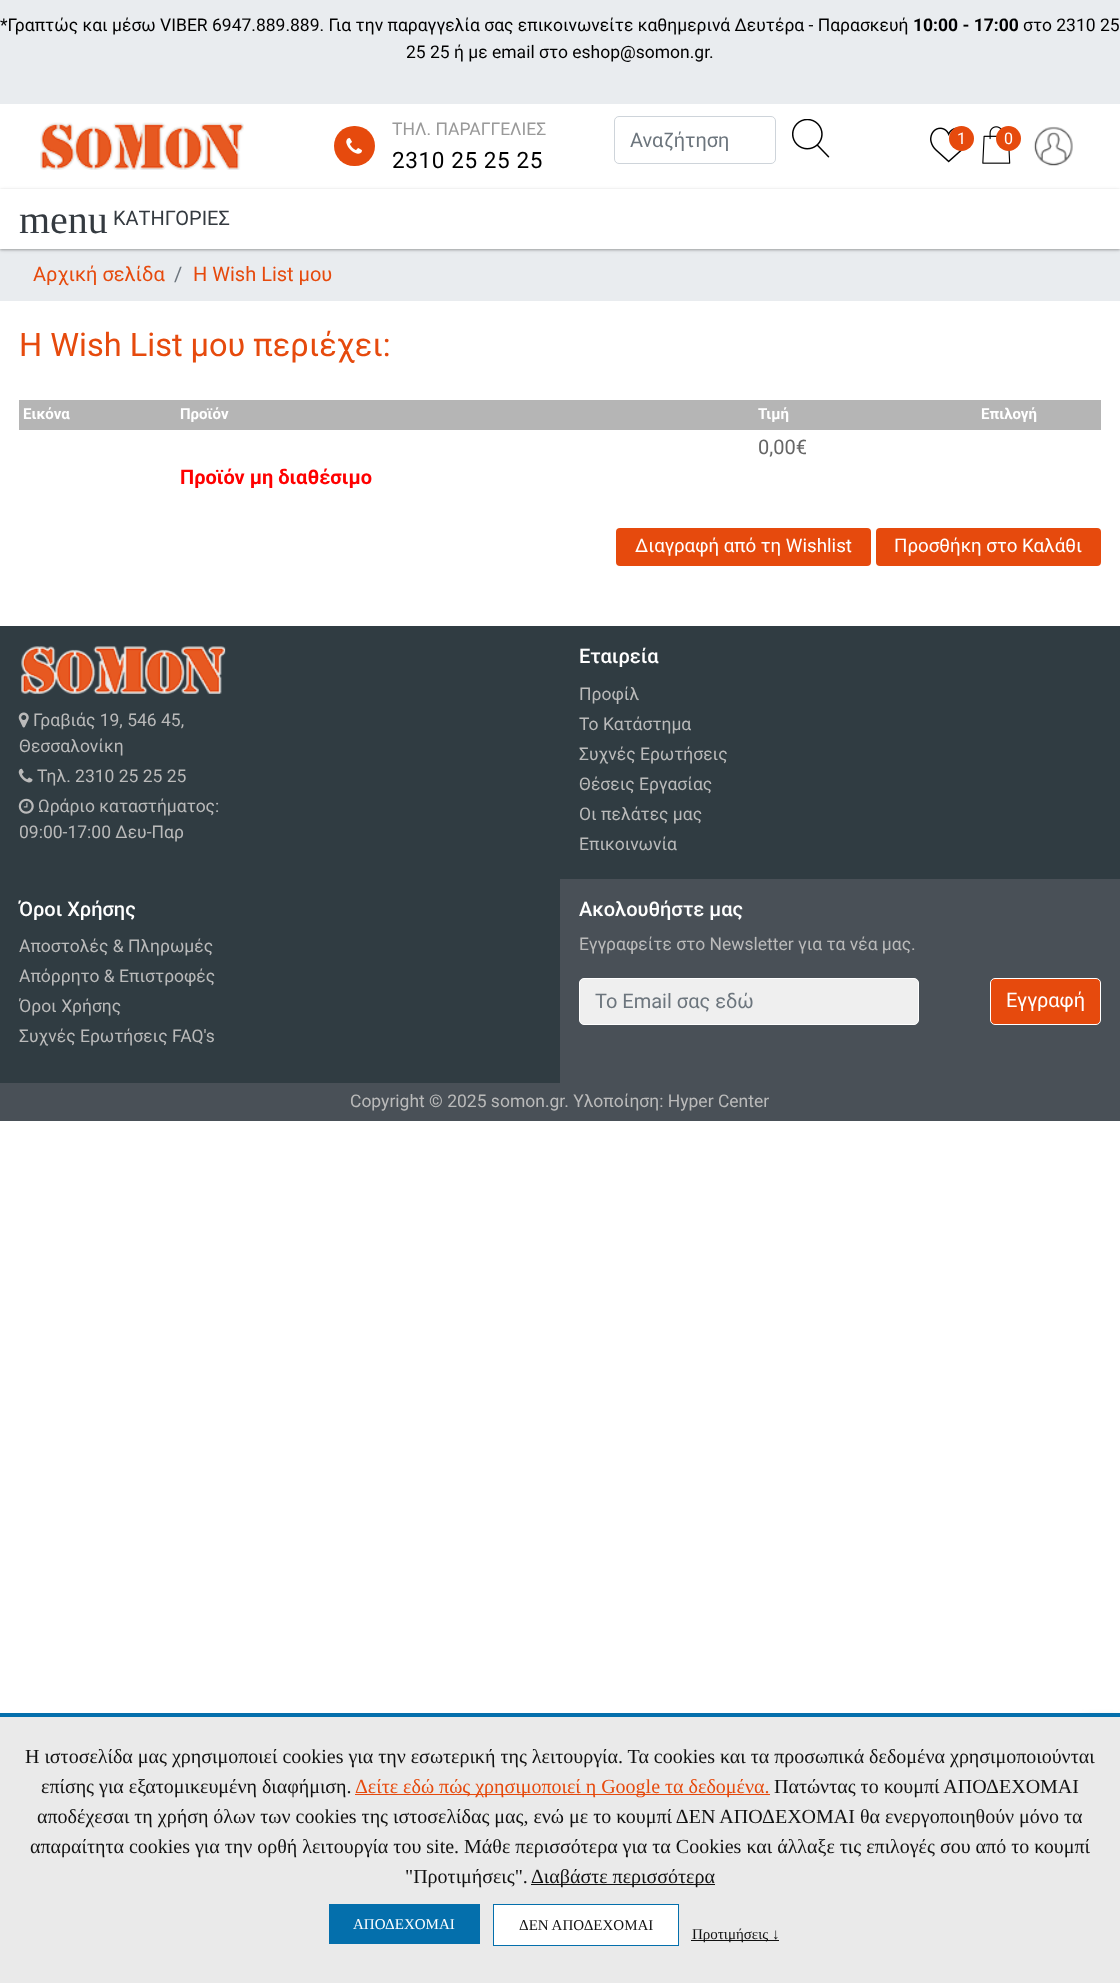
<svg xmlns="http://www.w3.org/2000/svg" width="1120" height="1983">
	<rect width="100%" height="100%" fill="#FFFFFF" />
	<rect x="0" y="0" width="1120" height="104" fill="#E9ECEF" />
	<text x="0" y="31" font-family="Roboto" font-size="17.5" fill="#000000">*Γραπτώς και μέσω VIBER 6947.889.889. Για την παραγγελία σας επικοινωνείτε καθημερινά Δευτέρα - Παρασκευή</text>
	<text x="913" y="31" font-family="Roboto" font-size="17.5" font-weight="700" fill="#000000">10:00 - 17:00</text>
	<g font-family="Roboto" font-size="17.5" fill="#000000">
		<text x="1023" y="31">στο 2310 25</text>
		<text x="406" y="58">25 25 ή με email στο eshop@somon.gr.</text>
	</g>
	<image x="40" y="122" width="204" height="48" href="assets/img1.png" />
	<rect x="334" y="126" width="41" height="40" rx="20" fill="#E64A0D" />
	<image x="346" y="138" width="16" height="16" href="assets/img2.png" />
	<text x="392" y="135" font-family="Roboto" font-size="17.5" fill="#999999">ΤΗΛ. ΠΑΡΑΓΓΕΛΙΕΣ</text>
	<text x="392" y="168" font-family="Roboto" font-size="22.5" letter-spacing="0.6" fill="#000000">2310 25 25 25</text>
	<rect x="614.5" y="116.5" width="161" height="47" rx="4.5" fill="none" stroke="#CED4DA" />
	<text x="630" y="147" font-family="Roboto" font-size="20" fill="#6C757D">Αναζήτηση</text>
	<image x="792" y="119" width="38" height="39" href="assets/img3.png" />
	<image x="930" y="127" width="33" height="36" href="assets/img4.png" />
	<circle cx="961.5" cy="138.5" r="12.5" fill="#E64A0D" />
	<text x="957" y="144" font-family="Roboto" font-size="16" fill="#FFFFFF">1</text>
	<image x="982" y="126" width="29" height="38" href="assets/img5.png" />
	<circle cx="1008.5" cy="138.5" r="12.5" fill="#E64A0D" />
	<text x="1004" y="144" font-family="Roboto" font-size="16" fill="#FFFFFF">0</text>
	<image x="1033" y="126" width="40" height="40" href="assets/img6.png" />
	<rect x="0" y="249" width="1120" height="52" fill="#E9ECEF" />
	<rect x="0" y="190" width="1120" height="60" fill="#000000" fill-opacity="0.24" filter="blur(1px)" />
	<rect x="0" y="190" width="1120" height="60" fill="#000000" fill-opacity="0.12" filter="blur(2px)" />
	<rect x="0" y="189" width="1120" height="60" fill="#FFFFFF" />
	<text x="19" y="233" font-family="Liberation Serif" font-size="40" fill="#343A40">menu</text>
	<text x="113" y="225" font-family="Roboto" font-size="20" fill="#343A40">ΚΑΤΗΓΟΡΙΕΣ</text>
	<text x="33" y="281" font-family="Roboto" font-size="20" fill="#E64A0D">Αρχική σελίδα</text>
	<text x="174" y="281" font-family="Roboto" font-size="20" fill="#6C757D">/</text>
	<text x="193" y="281" font-family="Roboto" font-size="20" fill="#E64A0D">Η Wish List μου</text>
	<text x="19" y="356" font-family="Roboto" font-size="32.5" fill="#E64A0D">Η Wish List μου περιέχει:</text>
	<rect x="19" y="400" width="1082" height="30" fill="#B5B5B5" />
	<g font-family="Roboto" font-size="15" font-weight="700" fill="#FFFFFF">
		<text x="23" y="419">Εικόνα</text>
		<text x="180" y="419">Προϊόν</text>
		<text x="758" y="419">Τιμή</text>
		<text x="981" y="419">Επιλογή</text>
	</g>
	<text x="758" y="454" font-family="Roboto" font-size="20" fill="#666666">0,00€</text>
	<text x="180" y="484" font-family="Roboto" font-size="20" font-weight="700" fill="#FF0000">Προϊόν μη διαθέσιμο</text>
	<rect x="616" y="528" width="255" height="38" rx="4" fill="#E64A0D" />
	<text x="635" y="552" font-family="Roboto" font-size="18.75" fill="#FFFFFF">Διαγραφή από τη Wishlist</text>
	<rect x="876" y="528" width="225" height="38" rx="4" fill="#E64A0D" />
	<text x="894" y="552" font-family="Roboto" font-size="18.75" fill="#FFFFFF">Προσθήκη στο Καλάθι</text>
	<rect x="0" y="626" width="1120" height="457" fill="#303C42" />
	<image x="21" y="646" width="205" height="48" href="assets/img7.png" />
	<image x="18" y="712" width="11" height="16" href="assets/img8.png" />
	<g font-family="Roboto" font-size="17.5" fill="#BABABA">
		<text x="33" y="726">Γραβιάς 19, 546 45,</text>
		<text x="19" y="752">Θεσσαλονίκη</text>
	</g>
	<image x="18" y="768" width="15" height="15" href="assets/img9.png" />
	<text x="37" y="782" font-family="Roboto" font-size="17.5" fill="#BABABA">Τηλ. 2310 25 25 25</text>
	<image x="18" y="798" width="16" height="16" href="assets/img10.png" />
	<g font-family="Roboto" font-size="17.5" fill="#BABABA">
		<text x="38" y="812">Ωράριο καταστήματος:</text>
		<text x="19" y="838">09:00-17:00 Δευ-Παρ</text>
	</g>
	<text x="579" y="663" font-family="Roboto" font-size="20" font-weight="500" fill="#FFFFFF">Εταιρεία</text>
	<g font-family="Roboto" font-size="17.5" fill="#BABABA">
		<text x="579" y="700">Προφίλ</text>
		<text x="579" y="730">Το Κατάστημα</text>
		<text x="579" y="760">Συχνές Ερωτήσεις</text>
		<text x="579" y="790">Θέσεις Εργασίας</text>
		<text x="579" y="820">Οι πελάτες μας</text>
		<text x="579" y="850">Επικοινωνία</text>
	</g>
	<text x="19" y="916" font-family="Roboto" font-size="20" font-weight="500" fill="#FFFFFF">Όροι Χρήσης</text>
	<g font-family="Roboto" font-size="17.5" fill="#BABABA">
		<text x="19" y="952">Αποστολές &amp; Πληρωμές</text>
		<text x="19" y="982">Απόρρητο &amp; Επιστροφές</text>
		<text x="19" y="1012">Όροι Χρήσης</text>
		<text x="19" y="1042">Συχνές Ερωτήσεις FAQ's</text>
	</g>
	<rect x="560" y="879" width="560" height="204" fill="#495057" />
	<text x="579" y="916" font-family="Roboto" font-size="20" font-weight="500" fill="#FFFFFF">Ακολουθήστε μας</text>
	<text x="579" y="950" font-family="Roboto" font-size="17.5" fill="#BABABA">Εγγραφείτε στο Newsletter για τα νέα μας.</text>
	<rect x="579.5" y="978.5" width="339" height="46" rx="4.5" fill="#EFEFEF" stroke="#FFFFFF" />
	<text x="595" y="1008" font-family="Roboto" font-size="20" fill="#6C757D">To Email σας εδώ</text>
	<rect x="990.5" y="978.5" width="110" height="46" rx="4.5" fill="#E64A0D" stroke="#FFFFFF" />
	<text x="1006" y="1007" font-family="Roboto" font-size="20" fill="#FFFFFF">Εγγραφή</text>
	<rect x="0" y="1083" width="1120" height="38" fill="#495057" />
	<text x="350" y="1107" font-family="Roboto" font-size="17.5" fill="#BABABA">Copyright © 2025 somon.gr. Υλοποίηση: Hyper Center</text>
	<rect x="1081" y="1719" width="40" height="215" rx="6" fill="#A6A6A6" filter="blur(4.5px)" />
	<rect x="0" y="1717" width="1120" height="266" fill="#EAEAEA" />
	<rect x="0" y="1713" width="1120" height="4" fill="#046FAC" />
	<g font-family="Liberation Serif" font-size="20" fill="#111111">
		<text x="25" y="1763">Η ιστοσελίδα μας χρησιμοποιεί cookies για την εσωτερική της λειτουργία. Τα cookies και τα προσωπικά δεδομένα χρησιμοποιούνται</text>
		<text x="41" y="1793">επίσης για εξατομικευμένη διαφήμιση.</text>
	</g>
	<rect x="355" y="1794" width="415" height="1" fill="#E64A0D" />
	<text x="355" y="1793" font-family="Liberation Serif" font-size="20" fill="#E64A0D">Δείτε εδώ πώς χρησιμοποιεί η Google τα δεδομένα.</text>
	<g font-family="Liberation Serif" font-size="20" fill="#111111">
		<text x="774" y="1793">Πατώντας το κουμπί ΑΠΟΔΕΧΟΜΑΙ</text>
		<text x="37" y="1823">αποδέχεσαι τη χρήση όλων των cookies της ιστοσελίδας μας, ενώ με το κουμπί ΔΕΝ ΑΠΟΔΕΧΟΜΑΙ θα ενεργοποιηθούν μόνο τα</text>
		<text x="30" y="1853">απαραίτητα cookies για την ορθή λειτουργία του site. Μάθε περισσότερα για τα Cookies και άλλαξε τις επιλογές σου από το κουμπί</text>
		<text x="405" y="1883">"Προτιμήσεις".</text>
	</g>
	<rect x="531" y="1884" width="184" height="1" fill="#111111" />
	<text x="531" y="1883" font-family="Liberation Serif" font-size="20" fill="#111111">Διαβάστε περισσότερα</text>
	<rect x="329" y="1904" width="151" height="40" fill="#046FAC" />
	<text x="353" y="1929" font-family="Liberation Serif" font-size="15" fill="#FFFFFF">ΑΠΟΔΕΧΟΜΑΙ</text>
	<rect x="493.5" y="1904.5" width="185" height="41" fill="#FFFFFF" stroke="#046FAC" />
	<text x="519" y="1930" font-family="Liberation Serif" font-size="15" fill="#111111">ΔΕΝ ΑΠΟΔΕΧΟΜΑΙ</text>
	<rect x="691" y="1940" width="88" height="1" fill="#111111" />
	<text x="692" y="1939" font-family="Liberation Serif" font-size="15" fill="#111111">Προτιμήσεις ↓</text>
</svg>
